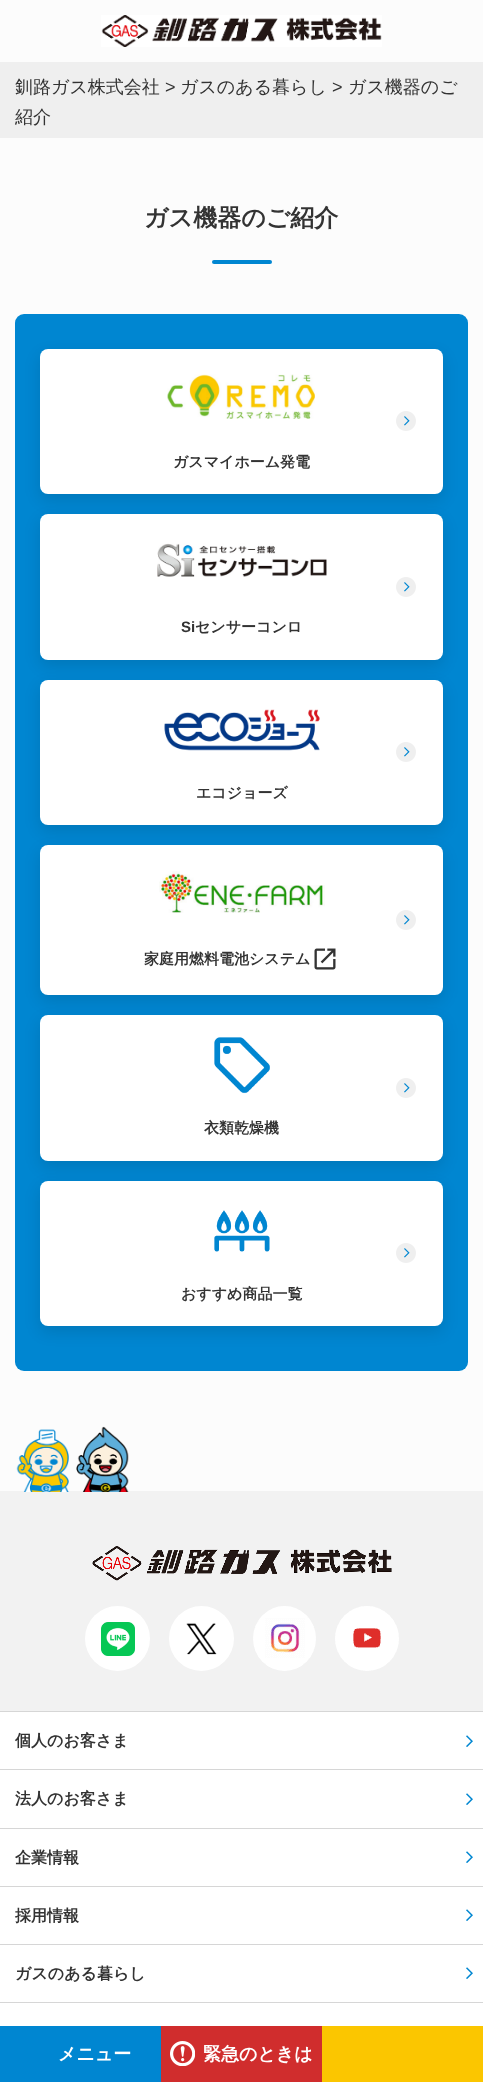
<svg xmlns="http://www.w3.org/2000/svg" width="483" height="2082">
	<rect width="100%" height="100%" fill="#FCFCFC" />
	<image x="101" y="15" width="281" height="32" href="assets/img1.png" />
	<rect x="0" y="62" width="483" height="76" fill="#EFEFEF" />
	<text x="15" y="93" font-family="WenQuanYi Zen Hei" font-size="18" font-weight="500" fill="#333333">釧路ガス株式会社</text>
	<text x="165" y="93" font-family="Liberation Sans" font-size="18" fill="#333333">&gt;</text>
	<text x="180" y="93" font-family="WenQuanYi Zen Hei" font-size="18" font-weight="500" fill="#333333">ガスのある暮らし</text>
	<text x="332" y="93" font-family="Liberation Sans" font-size="18" fill="#333333">&gt;</text>
	<g font-family="WenQuanYi Zen Hei" font-size="18" font-weight="500" fill="#333333">
		<text x="348" y="93">ガス機器のご</text>
		<text x="15" y="123">紹介</text>
	</g>
	<text x="144" y="226" font-family="WenQuanYi Zen Hei" font-size="24" font-weight="700" fill="#333333">ガス機器のご紹介</text>
	<rect x="212" y="260" width="60" height="4" rx="2" fill="#0086D1" />
	<rect x="15" y="314" width="453" height="1057" rx="9" fill="#0086D1" />
	<rect x="40" y="355" width="403" height="145" rx="8" fill="#000000" fill-opacity="0.11" filter="blur(7.5px)" />
	<rect x="40" y="349" width="403" height="145" rx="8" fill="#FFFFFF" />
	<image x="396" y="411" width="20" height="20" href="assets/img2.png" />
	<image x="167" y="374" width="148" height="45" href="assets/img3.png" />
	<text x="173" y="467" font-family="WenQuanYi Zen Hei" font-size="15" font-weight="700" fill="#333333">ガスマイホーム発電</text>
	<rect x="40" y="520" width="403" height="146" rx="8" fill="#000000" fill-opacity="0.11" filter="blur(7.5px)" />
	<rect x="40" y="514" width="403" height="146" rx="8" fill="#FFFFFF" />
	<image x="396" y="577" width="20" height="20" href="assets/img2.png" />
	<image x="157" y="543" width="170" height="34" href="assets/img4.png" />
	<text x="181" y="632" font-family="Liberation Sans" font-size="15" font-weight="700" fill="#333333">Si</text>
	<text x="195" y="632" font-family="WenQuanYi Zen Hei" font-size="15" font-weight="700" fill="#333333">センサーコンロ</text>
	<rect x="40" y="686" width="403" height="145" rx="8" fill="#000000" fill-opacity="0.11" filter="blur(7.5px)" />
	<rect x="40" y="680" width="403" height="145" rx="8" fill="#FFFFFF" />
	<image x="396" y="742" width="20" height="20" href="assets/img2.png" />
	<image x="164" y="709" width="156" height="42" href="assets/img5.png" />
	<text x="196" y="798" font-family="WenQuanYi Zen Hei" font-size="15" font-weight="700" fill="#333333">エコジョーズ</text>
	<rect x="40" y="851" width="403" height="150" rx="8" fill="#000000" fill-opacity="0.11" filter="blur(7.5px)" />
	<rect x="40" y="845" width="403" height="150" rx="8" fill="#FFFFFF" />
	<image x="396" y="910" width="20" height="20" href="assets/img2.png" />
	<image x="159" y="871" width="166" height="42" href="assets/img6.png" />
	<text x="144" y="964" font-family="WenQuanYi Zen Hei" font-size="15" font-weight="700" fill="#333333">家庭用燃料電池システム</text>
	<image x="314" y="948" width="22" height="22" href="assets/img7.png" />
	<rect x="40" y="1021" width="403" height="146" rx="8" fill="#000000" fill-opacity="0.11" filter="blur(7.5px)" />
	<rect x="40" y="1015" width="403" height="146" rx="8" fill="#FFFFFF" />
	<image x="396" y="1078" width="20" height="20" href="assets/img2.png" />
	<image x="214" y="1037" width="56" height="57" href="assets/img8.png" />
	<text x="204" y="1133" font-family="WenQuanYi Zen Hei" font-size="15" font-weight="700" fill="#333333">衣類乾燥機</text>
	<rect x="40" y="1187" width="403" height="145" rx="8" fill="#000000" fill-opacity="0.11" filter="blur(7.5px)" />
	<rect x="40" y="1181" width="403" height="145" rx="8" fill="#FFFFFF" />
	<image x="396" y="1243" width="20" height="20" href="assets/img2.png" />
	<image x="214" y="1210" width="56" height="42" href="assets/img9.png" />
	<text x="181" y="1299" font-family="WenQuanYi Zen Hei" font-size="15" font-weight="700" fill="#333333">おすすめ商品一覧</text>
	<rect x="0" y="1491" width="483" height="220" fill="#F2F2F2" />
	<image x="16" y="1426" width="113" height="66" href="assets/img10.png" />
	<image x="92" y="1546" width="300" height="35" href="assets/img11.png" />
	<image x="85" y="1606" width="65" height="65" href="assets/img12.png" />
	<image x="169" y="1606" width="65" height="65" href="assets/img13.png" />
	<image x="253" y="1606" width="63" height="65" href="assets/img14.png" />
	<image x="335" y="1606" width="64" height="65" href="assets/img15.png" />
	<rect x="0" y="1712" width="483" height="314" fill="#FFFFFF" />
	<rect x="0" y="1711" width="483" height="1" fill="#D6D6D6" />
	<image x="466" y="1735" width="7" height="12" href="assets/img16.png" />
	<rect x="0" y="1769" width="483" height="1" fill="#D6D6D6" />
	<text x="15" y="1746" font-family="WenQuanYi Zen Hei" font-size="16" font-weight="700" fill="#333333">個人のお客さま</text>
	<image x="466" y="1793" width="7" height="12" href="assets/img16.png" />
	<rect x="0" y="1828" width="483" height="1" fill="#D6D6D6" />
	<text x="15" y="1804" font-family="WenQuanYi Zen Hei" font-size="16" font-weight="700" fill="#333333">法人のお客さま</text>
	<image x="466" y="1851" width="7" height="12" href="assets/img16.png" />
	<rect x="0" y="1886" width="483" height="1" fill="#D6D6D6" />
	<text x="15" y="1863" font-family="WenQuanYi Zen Hei" font-size="16" font-weight="700" fill="#333333">企業情報</text>
	<image x="466" y="1909" width="7" height="12" href="assets/img16.png" />
	<rect x="0" y="1944" width="483" height="1" fill="#D6D6D6" />
	<text x="15" y="1921" font-family="WenQuanYi Zen Hei" font-size="16" font-weight="700" fill="#333333">採用情報</text>
	<image x="466" y="1967" width="7" height="12" href="assets/img16.png" />
	<rect x="0" y="2002" width="483" height="1" fill="#D6D6D6" />
	<text x="15" y="1979" font-family="WenQuanYi Zen Hei" font-size="16" font-weight="700" fill="#333333">ガスのある暮らし</text>
	<rect x="0" y="2026" width="161" height="56" fill="#0086D1" />
	<text x="58" y="2060" font-family="WenQuanYi Zen Hei" font-size="18" font-weight="700" fill="#FFFFFF">メニュー</text>
	<rect x="161" y="2026" width="161" height="56" fill="#D02D2D" />
	<image x="170" y="2041" width="25" height="25" href="assets/img17.png" />
	<text x="203" y="2060" font-family="WenQuanYi Zen Hei" font-size="18" font-weight="700" fill="#FFFFFF">緊急のときは</text>
	<rect x="322" y="2026" width="161" height="56" fill="#FBC600" />
</svg>
